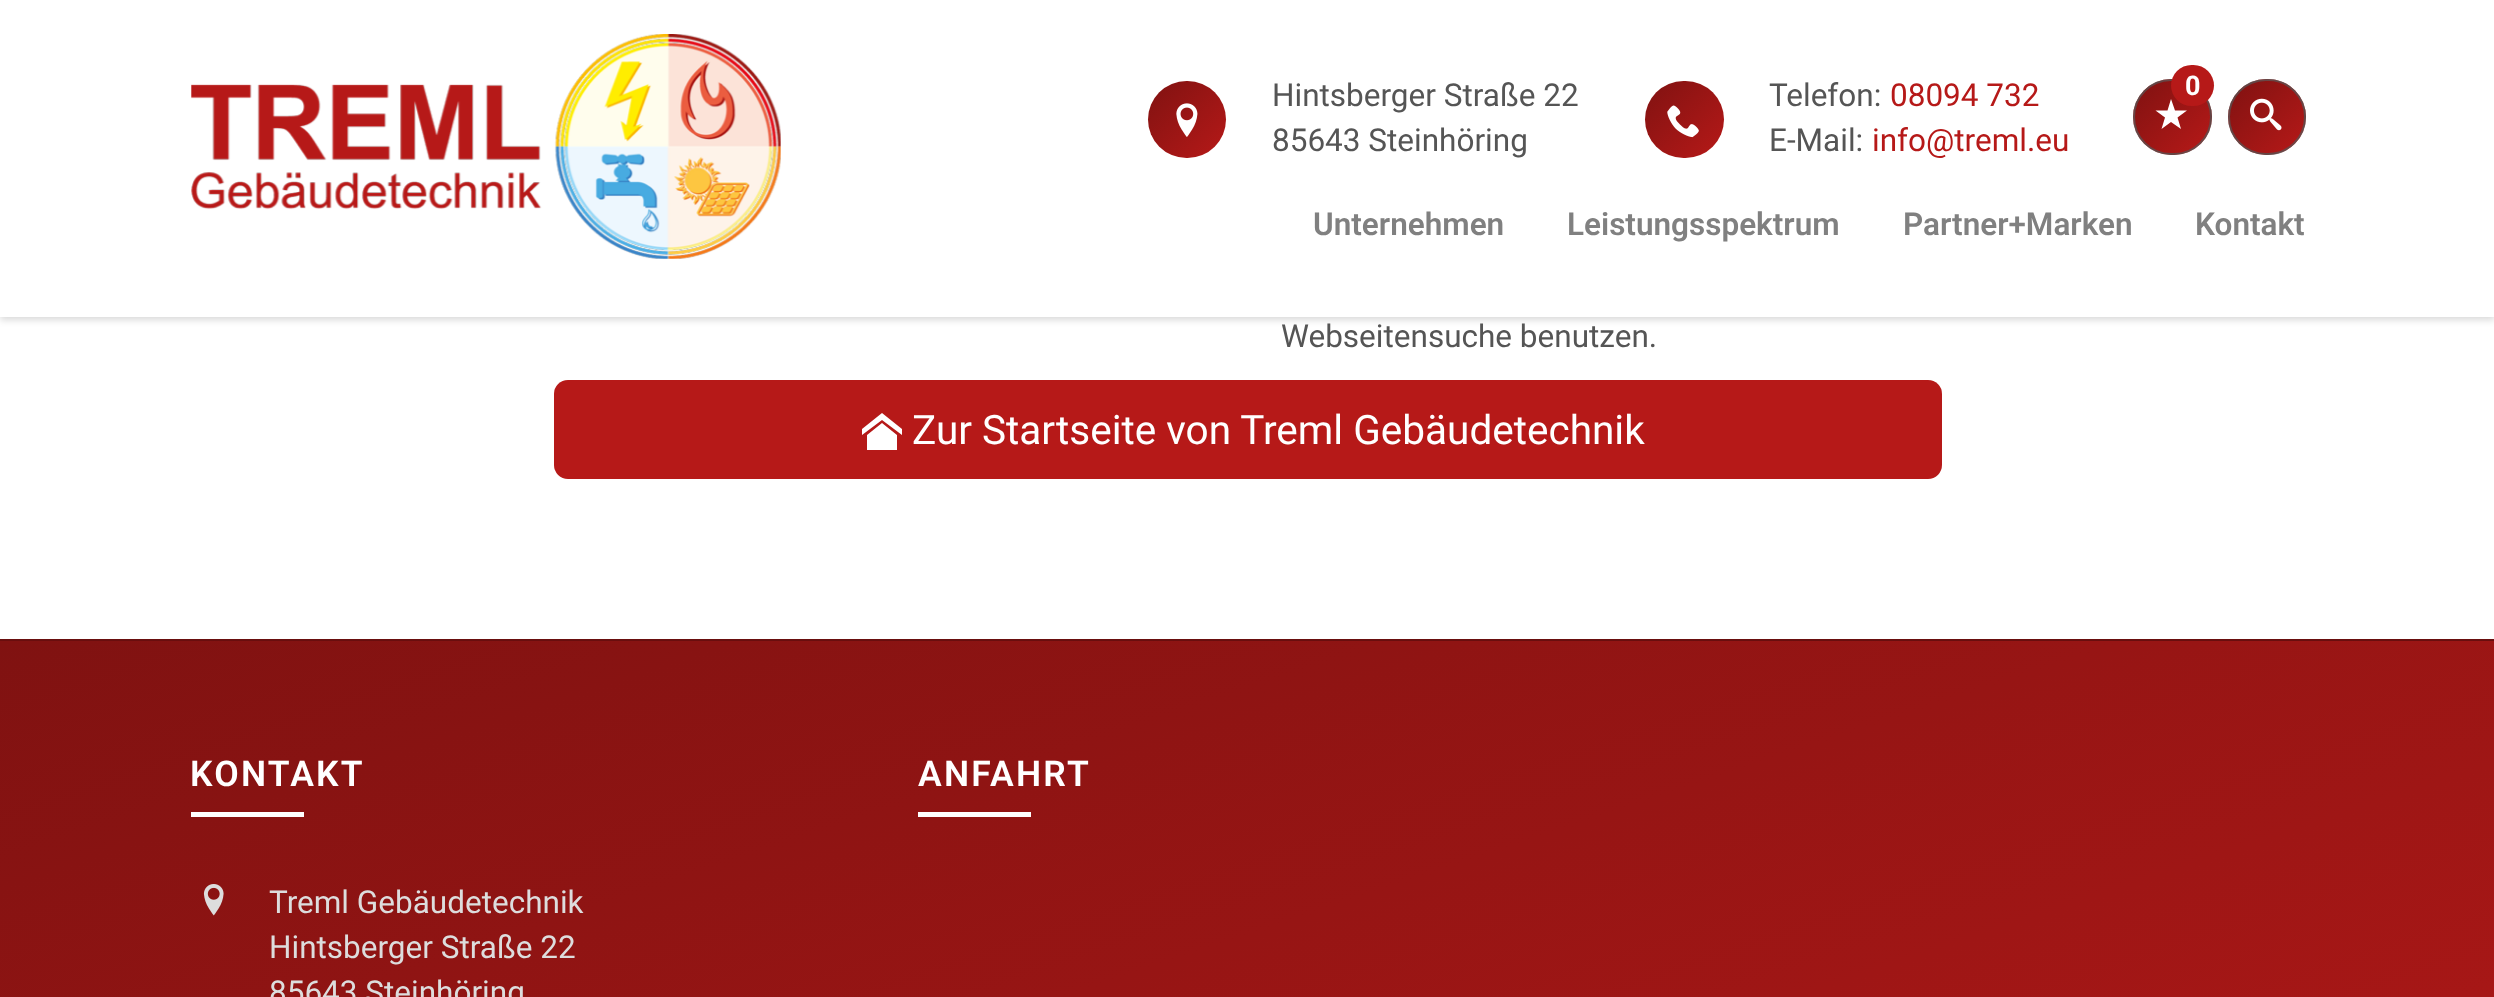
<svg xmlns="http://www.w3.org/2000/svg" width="2494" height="997">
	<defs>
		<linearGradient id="g1" gradientUnits="userSpaceOnUse" x1="1225" y1="159" x2="1149" y2="80"><stop offset="0" stop-color="#B61918" /><stop offset="1" stop-color="#801211" /></linearGradient>
		<linearGradient id="g2" gradientUnits="userSpaceOnUse" x1="1722" y1="159" x2="1646" y2="80"><stop offset="0" stop-color="#B61918" /><stop offset="1" stop-color="#801211" /></linearGradient>
		<clipPath id="clip1"><rect x="2133" y="79" width="79" height="76" rx="38" /></clipPath>
		<linearGradient id="g3" gradientUnits="userSpaceOnUse" x1="2208" y1="82" x2="2136" y2="7.9"><stop offset="0" stop-color="#B61918" /><stop offset="1" stop-color="#801211" /></linearGradient>
		<linearGradient id="g4" gradientUnits="userSpaceOnUse" x1="2134" y1="154" x2="2062" y2="80"><stop offset="0" stop-color="#B61918" /><stop offset="1" stop-color="#801211" /></linearGradient>
		<linearGradient id="g5" gradientUnits="userSpaceOnUse" x1="2208" y1="154" x2="2136" y2="80"><stop offset="0" stop-color="#B61918" /><stop offset="1" stop-color="#801211" /></linearGradient>
		<linearGradient id="g6" gradientUnits="userSpaceOnUse" x1="2283" y1="154" x2="2211" y2="80"><stop offset="0" stop-color="#B61918" /><stop offset="1" stop-color="#801211" /></linearGradient>
		<linearGradient id="g7" gradientUnits="userSpaceOnUse" x1="2208" y1="226" x2="2136" y2="152"><stop offset="0" stop-color="#B61918" /><stop offset="1" stop-color="#801211" /></linearGradient>
		<clipPath id="clip2"><rect x="2228" y="79" width="78" height="76" rx="38" /></clipPath>
		<linearGradient id="g8" gradientUnits="userSpaceOnUse" x1="2303" y1="82" x2="2231" y2="7.9"><stop offset="0" stop-color="#B61918" /><stop offset="1" stop-color="#801211" /></linearGradient>
		<linearGradient id="g9" gradientUnits="userSpaceOnUse" x1="2229" y1="154" x2="2157" y2="80"><stop offset="0" stop-color="#B61918" /><stop offset="1" stop-color="#801211" /></linearGradient>
		<linearGradient id="g10" gradientUnits="userSpaceOnUse" x1="2303" y1="154" x2="2231" y2="80"><stop offset="0" stop-color="#B61918" /><stop offset="1" stop-color="#801211" /></linearGradient>
		<linearGradient id="g11" gradientUnits="userSpaceOnUse" x1="2377" y1="154" x2="2305" y2="80"><stop offset="0" stop-color="#B61918" /><stop offset="1" stop-color="#801211" /></linearGradient>
		<linearGradient id="g12" gradientUnits="userSpaceOnUse" x1="2303" y1="226" x2="2231" y2="152"><stop offset="0" stop-color="#B61918" /><stop offset="1" stop-color="#801211" /></linearGradient>
		<linearGradient id="g13" gradientUnits="userSpaceOnUse" x1="1500" y1="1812" x2="995" y2="307"><stop offset="0" stop-color="#B61918" /><stop offset="1" stop-color="#801211" /></linearGradient>
	</defs>
	<rect width="100%" height="100%" fill="#FFFFFF" />
	<rect x="0" y="2" width="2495" height="318" fill="#000000" fill-opacity="0.15" filter="blur(3.5px)" />
	<rect x="0" y="0" width="2494" height="317" fill="#FFFFFF" />
	<image x="191" y="34" width="590" height="225" href="assets/img1.png" />
	<rect x="1148" y="81" width="78" height="77" rx="38.5" fill="url(#g1)" />
	<image x="1176" y="103" width="22" height="34" href="assets/img2.png" />
	<g font-family="Roboto" font-size="31.5" fill="#555555">
		<text x="1272" y="106">Hintsberger Straße 22</text>
		<text x="1272" y="151">85643 Steinhöring</text>
	</g>
	<rect x="1645" y="81" width="79" height="77" rx="38.5" fill="url(#g2)" />
	<image x="1667" y="105" width="32" height="33" href="assets/img3.png" />
	<text x="1769" y="106" font-family="Roboto" font-size="31.5" fill="#555555">Telefon:</text>
	<text x="1890" y="106" font-family="Roboto" font-size="31.5" fill="#B61918">08094 732</text>
	<text x="1769" y="151" font-family="Roboto" font-size="31.5" fill="#555555">E-Mail:</text>
	<text x="1872" y="151" font-family="Roboto" font-size="31.5" fill="#B61918">info@treml.eu</text>
	<g clip-path="url(#clip1)">
		<rect x="2159" y="79" width="13" height="2" fill="url(#g3)" />
		<rect x="2133" y="105" width="2" height="24" fill="url(#g4)" />
		<rect x="2135" y="81" width="75" height="72" fill="url(#g5)" />
		<rect x="2210" y="105" width="2" height="24" fill="url(#g6)" />
		<rect x="2159" y="153" width="27" height="2" fill="url(#g7)" />
	</g>
	<rect x="2134" y="80" width="77" height="74" rx="37" fill="none" stroke="#555555" stroke-opacity="0.75" stroke-width="2" />
	<path d="M2187 110.5H2175L2171 99L2167.5 110.5H2155.5L2165 117.5L2161.5 129L2171 122L2181 129L2177.5 117.5Z" fill="#FFFFFF" />
	<rect x="2171" y="65" width="43" height="41" rx="20.5" fill="#B61918" />
	<text x="2185" y="95" font-family="Roboto" font-size="27" font-weight="700" fill="#FFFFFF">0</text>
	<g clip-path="url(#clip2)">
		<rect x="2254" y="79" width="26" height="2" fill="url(#g8)" />
		<rect x="2228" y="105" width="2" height="24" fill="url(#g9)" />
		<rect x="2230" y="81" width="74" height="72" fill="url(#g10)" />
		<rect x="2304" y="105" width="2" height="24" fill="url(#g11)" />
		<rect x="2254" y="153" width="26" height="2" fill="url(#g12)" />
	</g>
	<rect x="2229" y="80" width="76" height="74" rx="37" fill="none" stroke="#555555" stroke-opacity="0.75" stroke-width="2" />
	<image x="2250" y="98" width="32" height="33" href="assets/img4.png" />
	<g font-family="Roboto" font-size="31.5" font-weight="600" fill="#808080">
		<text x="1313" y="235">Unternehmen</text>
		<text x="1567" y="235">Leistungsspektrum</text>
		<text x="1903" y="235">Partner+Marken</text>
		<text x="2195" y="235">Kontakt</text>
	</g>
	<text x="1281" y="347" font-family="Roboto" font-size="31.5" fill="#555555">Webseitensuche benutzen.</text>
	<rect x="554" y="380" width="1388" height="99" rx="14" fill="#B61918" />
	<path d="M902 435L882 420L862 435V429L882 413L902 429ZM897 435V450H867V435L882 423Z" fill="#FFFFFF" />
	<text x="912" y="444" font-family="Roboto" font-size="40.5" fill="#FFFFFF">Zur Startseite von Treml Gebäudetechnik</text>
	<rect x="0" y="641" width="2494" height="356" fill="url(#g13)" />
	<rect x="0" y="639" width="2494" height="2" fill="#690E0E" />
	<text x="190" y="786" font-family="Roboto" font-size="35.5" font-weight="600" letter-spacing="2.25" fill="#FFFFFF">KONTAKT</text>
	<rect x="191" y="812" width="113" height="5" fill="#FFFFFF" />
	<image x="203" y="884" width="21" height="32" href="assets/img5.png" />
	<g font-family="Roboto" font-size="31.5" fill="#DDDDDD">
		<text x="269" y="913">Treml Gebäudetechnik</text>
		<text x="269" y="958">Hintsberger Straße 22</text>
		<text x="269" y="1003">85643 Steinhöring</text>
	</g>
	<text x="918" y="786" font-family="Roboto" font-size="35.5" font-weight="600" letter-spacing="2.25" fill="#FFFFFF">ANFAHRT</text>
	<rect x="918" y="812" width="113" height="5" fill="#FFFFFF" />
</svg>
